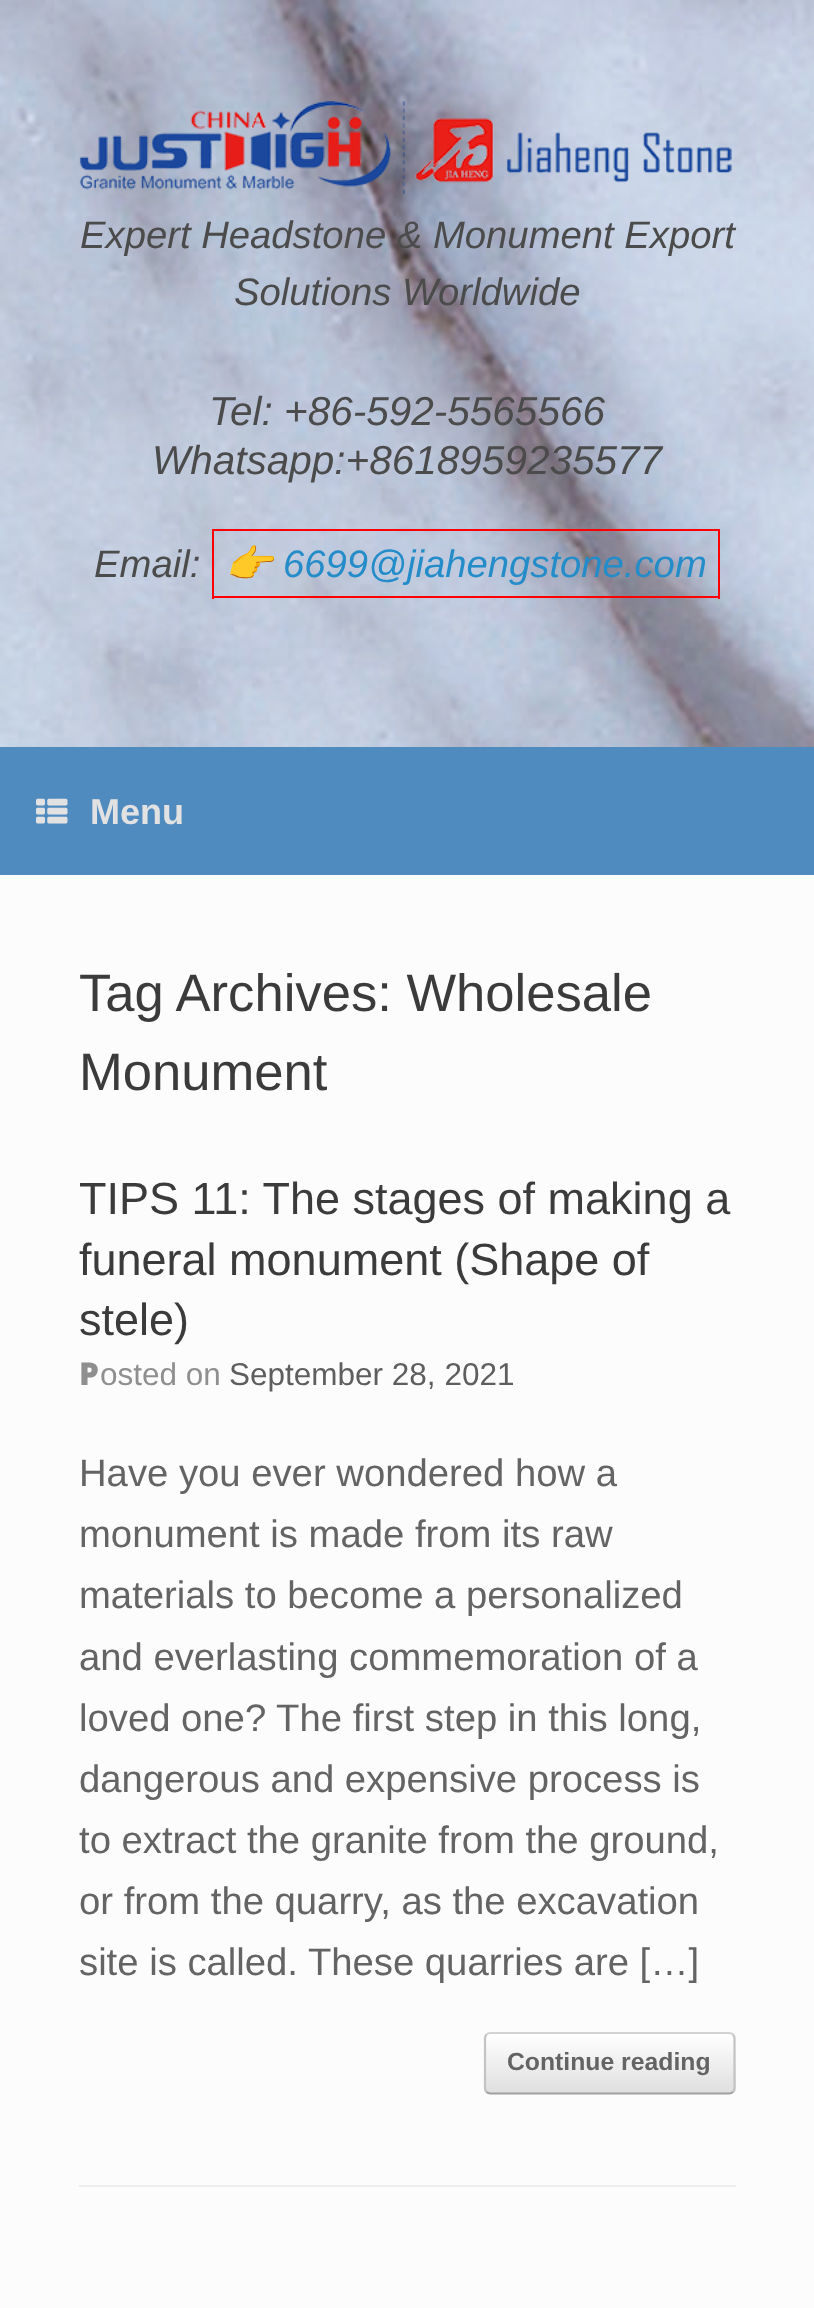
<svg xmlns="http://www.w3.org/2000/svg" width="814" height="2308">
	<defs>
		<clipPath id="clip1"><rect x="484" y="2032" width="252" height="63" rx="7" /></clipPath>
		<linearGradient id="g1" gradientUnits="userSpaceOnUse" x1="486" y1="2093" x2="486" y2="2034"><stop offset="0" stop-color="#DFDFDF" /><stop offset="1" stop-color="#FFFFFF" /></linearGradient>
		<linearGradient id="g2" gradientUnits="userSpaceOnUse" x1="486" y1="2151" x2="486" y2="2093"><stop offset="0" stop-color="#DFDFDF" /><stop offset="1" stop-color="#FFFFFF" /></linearGradient>
	</defs>
	<rect width="100%" height="100%" fill="#FFFFFF" />
	<image x="0" y="0" width="814" height="747" href="assets/img1.png" />
	<image x="79" y="101" width="653" height="94" href="assets/img2.png" />
	<g font-family="Liberation Sans" font-size="38.25" font-style="italic" fill="#4B4B4B">
		<text x="80" y="248">Expert Headstone &amp; Monument Export</text>
		<text x="234" y="305">Solutions Worldwide</text>
	</g>
	<g font-family="Liberation Sans" font-size="40.5" font-style="italic" fill="#4B4B4B">
		<text x="209" y="425">Tel: +86-592-5565566</text>
		<text x="152" y="474">Whatsapp:+8618959235577</text>
	</g>
	<text x="94" y="577" font-family="Liberation Sans" font-size="38.25" font-style="italic" fill="#4B4B4B">Email:</text>
	<text x="225" y="577" font-family="Noto Color Emoji" font-size="38.25" font-style="italic" fill="#4B4B4B">👉</text>
	<rect x="212" y="529" width="508" height="2" fill="#FF0000" />
	<rect x="212" y="596" width="72" height="2" fill="#FF0000" />
	<rect x="212" y="529" width="2" height="70" fill="#FF0000" />
	<text x="283" y="577" font-family="Liberation Sans" font-size="38.25" font-style="italic" fill="#248CC8">6699@jiahengstone.com</text>
	<rect x="718" y="529" width="2" height="70" fill="#FF0000" />
	<rect x="284" y="596" width="436" height="2" fill="#FF0000" />
	<rect x="0" y="747" width="814" height="128" fill="#508BBF" />
	<image x="36" y="798" width="32" height="26" href="assets/img3.png" />
	<text x="90" y="824" font-family="Liberation Sans" font-size="36" font-weight="700" fill="#E2E2E2">Menu</text>
	<rect x="0" y="875" width="814" height="1433" fill="#FCFCFC" />
	<g font-family="Liberation Sans" font-size="52.6" fill="#3B3B3B">
		<text x="79" y="1011">Tag Archives: Wholesale</text>
		<text x="79" y="1090">Monument</text>
	</g>
	<rect x="79" y="2185" width="657" height="2" fill="#EEEEEE" />
	<g font-family="Liberation Sans" font-size="45" fill="#3B3B3B">
		<text x="79" y="1214">TIPS 11: The stages of making a</text>
		<text x="79" y="1275">funeral monument (Shape of</text>
		<text x="79" y="1335">stele)</text>
	</g>
	<text x="79" y="1385" font-family="Noto Sans" font-size="31.5" font-weight="900" fill="#8F8F8F">P</text>
	<text x="100" y="1385" font-family="Liberation Sans" font-size="31.5" fill="#8F8F8F">osted on</text>
	<text x="229" y="1385" font-family="Liberation Sans" font-size="31.5" fill="#5E5E5E">September 28, 2021</text>
	<g font-family="Liberation Sans" font-size="38.25" fill="#646464">
		<text x="79" y="1486">Have you ever wondered how a</text>
		<text x="79" y="1547">monument is made from its raw</text>
		<text x="79" y="1608">materials to become a personalized</text>
		<text x="79" y="1670">and everlasting commemoration of a</text>
		<text x="79" y="1731">loved one? The first step in this long,</text>
		<text x="79" y="1792">dangerous and expensive process is</text>
		<text x="79" y="1853">to extract the granite from the ground,</text>
		<text x="79" y="1914">or from the quarry, as the excavation</text>
		<text x="79" y="1975">site is called. These quarries are […]</text>
	</g>
	<g clip-path="url(#clip1)">
		<rect x="484" y="2034" width="252" height="59" fill="url(#g1)" />
		<rect x="484" y="2093" width="252" height="2" fill="url(#g2)" />
	</g>
	<path d="M486.5 2034.5C487.5 2033.5 489 2033 490.5 2033H729C730.5 2033 732 2033.5 733 2034.5" fill="none" stroke="#D2D2D2" stroke-width="2.2" />
	<path d="M733 2034.5C734 2035.5 734.5 2037 734.5 2038.5V2088C734.5 2089.5 734 2091 733 2092" fill="none" stroke="#C3C3C3" stroke-width="2.2" />
	<path d="M733 2092C732 2093 730.5 2093.5 729 2093.5H490.5C489 2093.5 487.5 2093 486.5 2092" fill="none" stroke="#9F9F9F" stroke-width="2.2" />
	<path d="M486.5 2092C485.5 2091 485 2089.5 485 2088V2038.5C485 2037 485.5 2035.5 486.5 2034.5" fill="none" stroke="#C3C3C3" stroke-width="2.2" />
	<text x="507" y="2070" font-family="Liberation Sans" font-size="24.75" font-weight="700" fill="#646464">Continue reading</text>
</svg>
